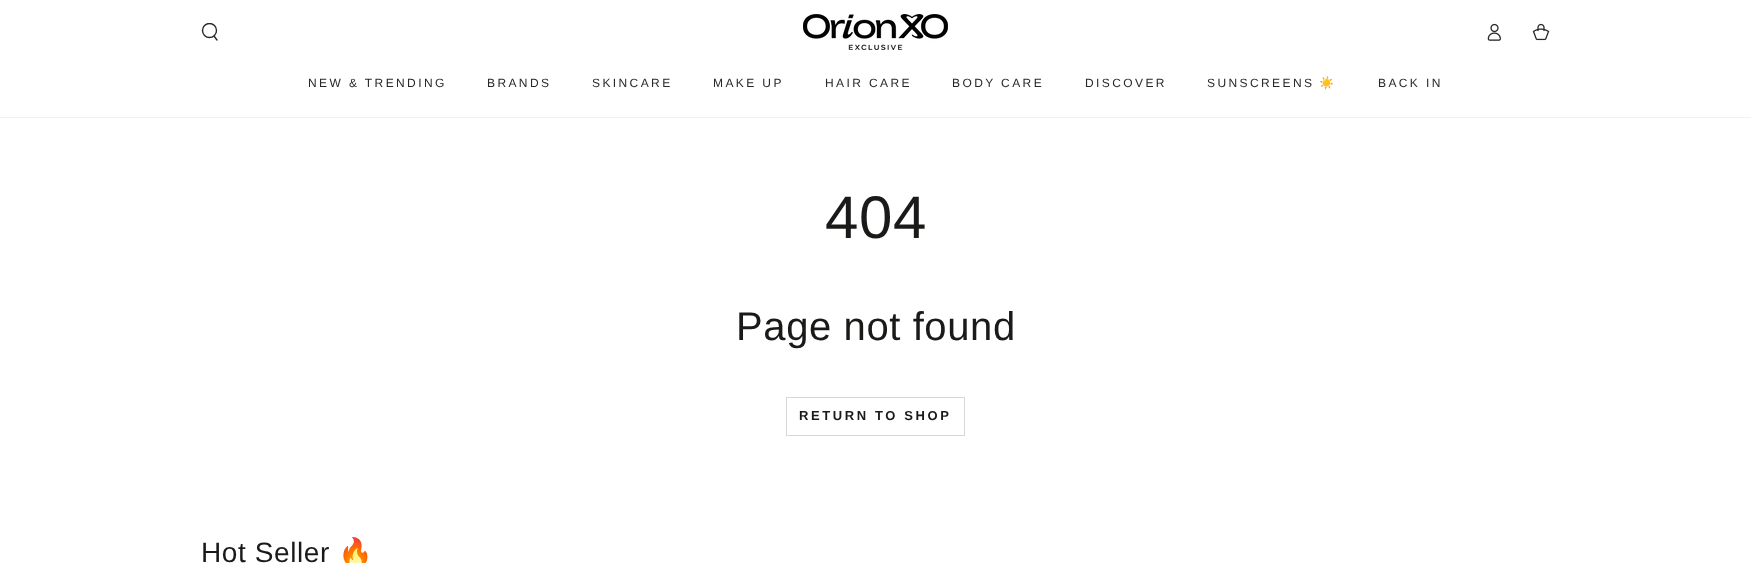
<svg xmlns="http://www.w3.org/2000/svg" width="1751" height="563">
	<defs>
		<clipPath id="clip1"><rect x="201" y="23" width="18" height="18" /></clipPath>
	</defs>
	<rect width="100%" height="100%" fill="#FFFFFF" />
	<rect x="0" y="117" width="1751" height="1" fill="#F2F2F4" />
	<g clip-path="url(#clip1)">
		<circle cx="209.5" cy="30.5" r="7" fill="none" stroke="#282828" stroke-width="1.4" />
	</g>
	<path d="M214 36L217 40" fill="none" stroke="#282828" stroke-width="1.4" stroke-linecap="round" />
	<image x="803" y="14" width="145" height="36" href="assets/img1.png" />
	<image x="1487" y="23" width="14" height="18" href="assets/img2.png" />
	<image x="1532" y="23" width="18" height="18" href="assets/img3.png" />
	<g font-family="Liberation Sans" font-size="12" letter-spacing="2.4" fill="#282828">
		<text x="308" y="87">NEW &amp; TRENDING</text>
		<text x="487" y="87">BRANDS</text>
		<text x="592" y="87">SKINCARE</text>
		<text x="713" y="87">MAKE UP</text>
		<text x="825" y="87">HAIR CARE</text>
		<text x="952" y="87">BODY CARE</text>
		<text x="1085" y="87">DISCOVER</text>
		<text x="1207" y="87">SUNSCREENS</text>
	</g>
	<text x="1319" y="87" font-family="Noto Color Emoji" font-size="12" letter-spacing="2.4" fill="#282828">☀️</text>
	<text x="1378" y="87" font-family="Liberation Sans" font-size="12" letter-spacing="2.4" fill="#282828">BACK IN</text>
	<text x="825" y="238" font-family="Liberation Sans" font-size="60" letter-spacing="0.6" fill="#1A1B18">404</text>
	<text x="736" y="340" font-family="Liberation Sans" font-size="40" letter-spacing="0.6" fill="#1A1B18">Page not found</text>
	<rect x="786.45" y="397.45" width="178.1" height="38.1" fill="none" stroke="#D2D5D9" stroke-width="0.9" />
	<text x="799" y="420" font-family="Liberation Sans" font-size="13" font-weight="700" letter-spacing="2.6" fill="#1A1B18">RETURN TO SHOP</text>
	<text x="201" y="562" font-family="Liberation Sans" font-size="28" letter-spacing="0.6" fill="#1A1B18">Hot Seller</text>
	<text x="338" y="562" font-family="Noto Color Emoji" font-size="28" letter-spacing="0.6" fill="#1A1B18">🔥</text>
</svg>
